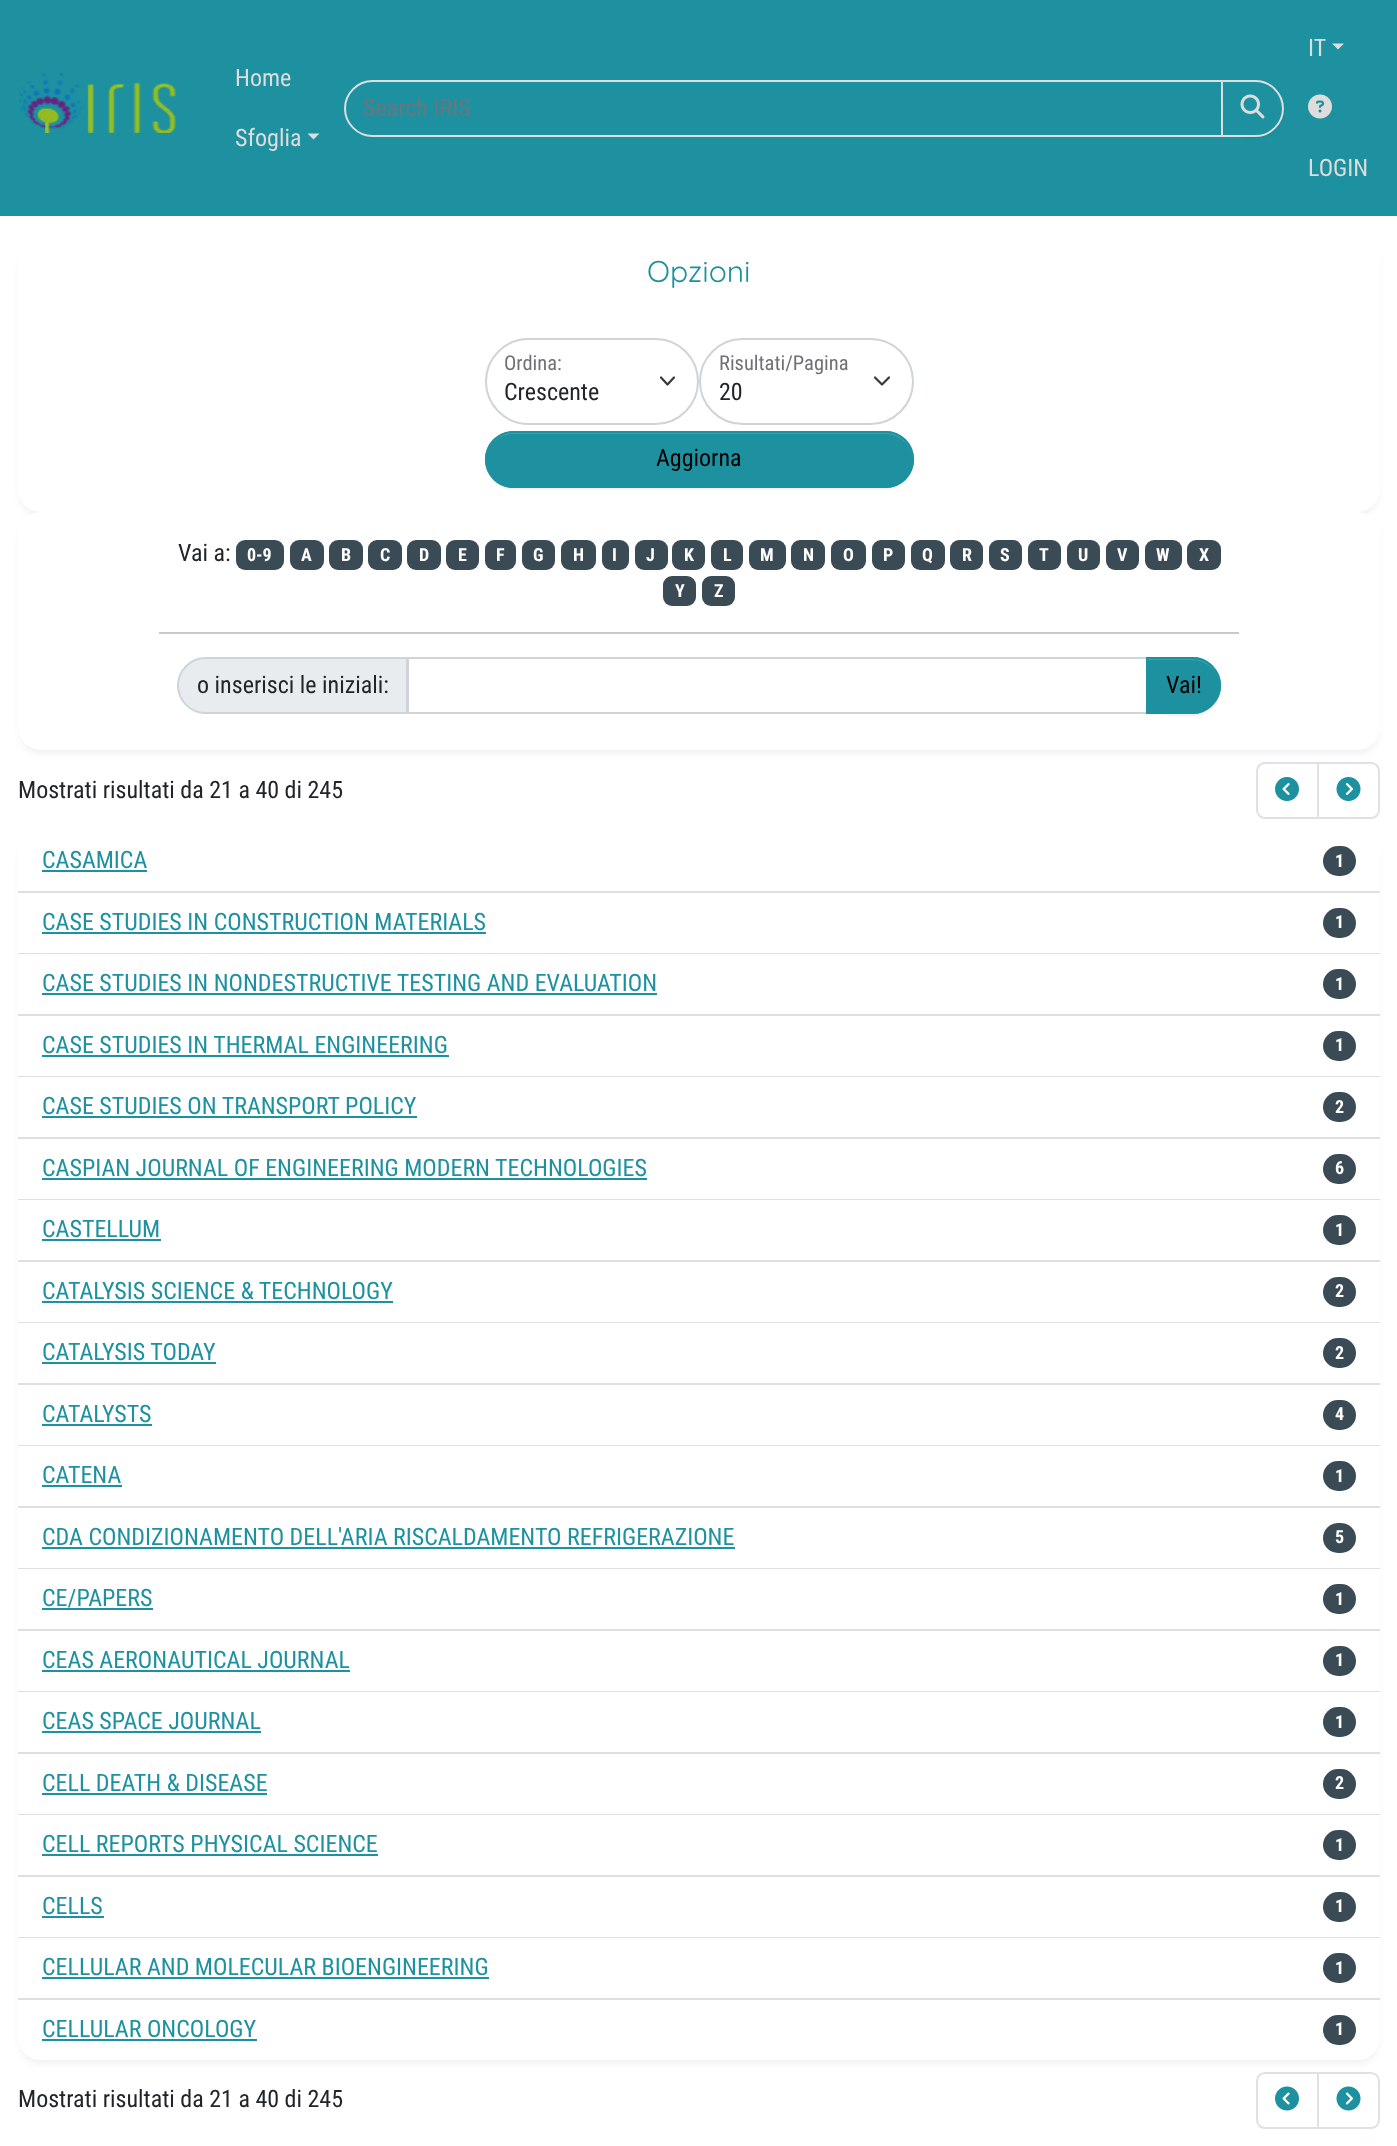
<svg xmlns="http://www.w3.org/2000/svg" width="1397" height="2146">
	<rect width="100%" height="100%" fill="#FFFFFF" />
	<rect x="0" y="0" width="1397" height="216" fill="#1D919F" />
	<image x="19" y="73" width="157" height="60" href="assets/img1.png" />
	<g font-family="Roboto Condensed" font-size="24" fill="#DDDDDD">
		<text x="235" y="86">Home</text>
		<text x="235" y="146">Sfoglia</text>
	</g>
	<path d="M307.5 133.5H319.5L313.5 139.5Z" fill="#DDDDDD" />
	<path d="M372.5 81H1222V136H372.5C357.5 136 345 123.5 345 108.5C345 93.5 357.5 81 372.5 81Z" fill="none" stroke="#DDDDDD" stroke-width="2" />
	<text x="363" y="116" font-family="Roboto Condensed" font-size="24" fill="#6C757D">Search IRIS</text>
	<rect x="1221" y="81" width="63" height="57" rx="28.5" fill="#000000" fill-opacity="0.07" filter="blur(1px)" />
	<path d="M1221 80H1255.5C1271 80 1284 93 1284 108.5C1284 124 1271 137 1255.5 137H1221Z" fill="#1D919F" />
	<path d="M1223 81V82H1256C1270 82 1282 95 1282 110C1282 115 1280 120 1277 124C1291 107 1278 81 1256 81Z" fill="#3FA2AD" />
	<path d="M1222 81H1255.5C1270.5 81 1283 93.5 1283 108.5C1283 123.5 1270.5 136 1255.5 136H1222Z" fill="none" stroke="#DDDDDD" stroke-width="2" />
	<image x="1240" y="94" width="25" height="25" href="assets/img2.png" />
	<text x="1308" y="56" font-family="Roboto Condensed" font-size="24" fill="#DDDDDD">IT</text>
	<path d="M1332 43.5H1344L1338 49.5Z" fill="#DDDDDD" />
	<image x="1308" y="94" width="24" height="25" href="assets/img3.png" />
	<text x="1308" y="176" font-family="Roboto Condensed" font-size="24" fill="#DDDDDD">LOGIN</text>
	<rect x="21" y="251" width="1356" height="264" rx="20" fill="#EEEEEE" filter="blur(4.5px)" />
	<rect x="18" y="242" width="1362" height="270" rx="23" fill="#FFFFFF" />
	<text x="647" y="282" font-family="Quicksand" font-size="30" font-weight="300" fill="#1D919F">Opzioni</text>
	<path d="M661 377.5L667.5 384.5L674 377.5" fill="none" stroke="#343A40" stroke-width="2.2" stroke-linecap="round" stroke-linejoin="round" />
	<rect x="486" y="339" width="212" height="85" rx="42.5" fill="none" stroke="#CED4DA" stroke-width="2" />
	<text x="504" y="370" font-family="Roboto Condensed" font-size="20.5" fill="#6F7174">Ordina:</text>
	<text x="504" y="400" font-family="Roboto Condensed" font-size="24" fill="#212529">Crescente</text>
	<path d="M875 377.5L882 384.5L889 377.5" fill="none" stroke="#343A40" stroke-width="2.2" stroke-linecap="round" stroke-linejoin="round" />
	<rect x="700" y="339" width="213" height="85" rx="42.5" fill="none" stroke="#CED4DA" stroke-width="2" />
	<text x="719" y="370" font-family="Roboto Condensed" font-size="20.5" fill="#6F7174">Risultati/Pagina</text>
	<text x="719" y="400" font-family="Roboto Condensed" font-size="24" fill="#212529">20</text>
	<rect x="485" y="432" width="429" height="57" rx="28.5" fill="#000000" fill-opacity="0.07" filter="blur(1px)" />
	<rect x="485" y="431" width="429" height="57" rx="28.5" fill="#1D919F" />
	<path d="M513 434H885C900 434 912 446 912 460C912 445 900 432 885 432H513C498 432 486 445 486 460C486 446 498 434 513 434Z" fill="#3FA2AD" />
	<rect x="486" y="432" width="427" height="55" rx="27.5" fill="none" stroke="#1D919F" stroke-width="2" />
	<text x="656" y="466" font-family="Roboto Condensed" font-size="24" fill="#000000">Aggiorna</text>
	<rect x="21" y="521" width="1356" height="232" rx="20" fill="#EEEEEE" filter="blur(4.5px)" />
	<rect x="18" y="512" width="1362" height="238" rx="23" fill="#FFFFFF" />
	<text x="178" y="561" font-family="Roboto Condensed" font-size="24" fill="#212529">Vai a:</text>
	<rect x="236" y="540" width="48" height="30" rx="9" fill="#3A4B55" />
	<text x="247" y="561" font-family="Roboto Condensed" font-size="18" font-weight="700" fill="#FFFFFF">0-9</text>
	<rect x="290" y="540" width="34" height="30" rx="9" fill="#3A4B55" />
	<text x="301" y="561" font-family="Roboto Condensed" font-size="18" font-weight="700" fill="#FFFFFF">A</text>
	<rect x="329" y="540" width="34" height="30" rx="9" fill="#3A4B55" />
	<text x="341" y="561" font-family="Roboto Condensed" font-size="18" font-weight="700" fill="#FFFFFF">B</text>
	<rect x="368" y="540" width="34" height="30" rx="9" fill="#3A4B55" />
	<text x="380" y="561" font-family="Roboto Condensed" font-size="18" font-weight="700" fill="#FFFFFF">C</text>
	<rect x="407" y="540" width="34" height="30" rx="9" fill="#3A4B55" />
	<text x="419" y="561" font-family="Roboto Condensed" font-size="18" font-weight="700" fill="#FFFFFF">D</text>
	<rect x="446" y="540" width="33" height="30" rx="9" fill="#3A4B55" />
	<text x="458" y="561" font-family="Roboto Condensed" font-size="18" font-weight="700" fill="#FFFFFF">E</text>
	<rect x="485" y="540" width="31" height="30" rx="9" fill="#3A4B55" />
	<text x="496" y="561" font-family="Roboto Condensed" font-size="18" font-weight="700" fill="#FFFFFF">F</text>
	<rect x="522" y="540" width="33" height="30" rx="9" fill="#3A4B55" />
	<text x="533" y="561" font-family="Roboto Condensed" font-size="18" font-weight="700" fill="#FFFFFF">G</text>
	<rect x="561" y="540" width="35" height="30" rx="9" fill="#3A4B55" />
	<text x="573" y="561" font-family="Roboto Condensed" font-size="18" font-weight="700" fill="#FFFFFF">H</text>
	<rect x="602" y="540" width="27" height="30" rx="9" fill="#3A4B55" />
	<text x="612" y="561" font-family="Roboto Condensed" font-size="18" font-weight="700" fill="#FFFFFF">I</text>
	<rect x="635" y="540" width="33" height="30" rx="9" fill="#3A4B55" />
	<text x="646" y="561" font-family="Roboto Condensed" font-size="18" font-weight="700" fill="#FFFFFF">J</text>
	<rect x="672" y="540" width="33" height="30" rx="9" fill="#3A4B55" />
	<text x="684" y="561" font-family="Roboto Condensed" font-size="18" font-weight="700" fill="#FFFFFF">K</text>
	<rect x="711" y="540" width="32" height="30" rx="9" fill="#3A4B55" />
	<text x="723" y="561" font-family="Roboto Condensed" font-size="18" font-weight="700" fill="#FFFFFF">L</text>
	<rect x="749" y="540" width="37" height="30" rx="9" fill="#3A4B55" />
	<text x="760" y="561" font-family="Roboto Condensed" font-size="18" font-weight="700" fill="#FFFFFF">M</text>
	<rect x="791" y="540" width="34" height="30" rx="9" fill="#3A4B55" />
	<text x="803" y="561" font-family="Roboto Condensed" font-size="18" font-weight="700" fill="#FFFFFF">N</text>
	<rect x="831" y="540" width="35" height="30" rx="9" fill="#3A4B55" />
	<text x="843" y="561" font-family="Roboto Condensed" font-size="18" font-weight="700" fill="#FFFFFF">O</text>
	<rect x="872" y="540" width="33" height="30" rx="9" fill="#3A4B55" />
	<text x="883" y="561" font-family="Roboto Condensed" font-size="18" font-weight="700" fill="#FFFFFF">P</text>
	<rect x="911" y="540" width="34" height="30" rx="9" fill="#3A4B55" />
	<text x="922" y="561" font-family="Roboto Condensed" font-size="18" font-weight="700" fill="#FFFFFF">Q</text>
	<rect x="950" y="540" width="33" height="30" rx="9" fill="#3A4B55" />
	<text x="962" y="561" font-family="Roboto Condensed" font-size="18" font-weight="700" fill="#FFFFFF">R</text>
	<rect x="989" y="540" width="33" height="30" rx="9" fill="#3A4B55" />
	<text x="1000" y="561" font-family="Roboto Condensed" font-size="18" font-weight="700" fill="#FFFFFF">S</text>
	<rect x="1028" y="540" width="33" height="30" rx="9" fill="#3A4B55" />
	<text x="1039" y="561" font-family="Roboto Condensed" font-size="18" font-weight="700" fill="#FFFFFF">T</text>
	<rect x="1067" y="540" width="33" height="30" rx="9" fill="#3A4B55" />
	<text x="1078" y="561" font-family="Roboto Condensed" font-size="18" font-weight="700" fill="#FFFFFF">U</text>
	<rect x="1106" y="540" width="33" height="30" rx="9" fill="#3A4B55" />
	<text x="1117" y="561" font-family="Roboto Condensed" font-size="18" font-weight="700" fill="#FFFFFF">V</text>
	<rect x="1145" y="540" width="37" height="30" rx="9" fill="#3A4B55" />
	<text x="1156" y="561" font-family="Roboto Condensed" font-size="18" font-weight="700" fill="#FFFFFF">W</text>
	<rect x="1187" y="540" width="34" height="30" rx="9" fill="#3A4B55" />
	<text x="1199" y="561" font-family="Roboto Condensed" font-size="18" font-weight="700" fill="#FFFFFF">X</text>
	<rect x="663" y="576" width="33" height="30" rx="9" fill="#3A4B55" />
	<text x="675" y="597" font-family="Roboto Condensed" font-size="18" font-weight="700" fill="#FFFFFF">Y</text>
	<rect x="702" y="576" width="33" height="30" rx="9" fill="#3A4B55" />
	<text x="714" y="597" font-family="Roboto Condensed" font-size="18" font-weight="700" fill="#FFFFFF">Z</text>
	<rect x="159" y="632" width="1080" height="2" fill="#C8C9CA" />
	<path d="M205.5 658H407V713H205.5C190.5 713 178 700.5 178 685.5C178 670.5 190.5 658 205.5 658Z" fill="#E9ECEF" stroke="#CED4DA" stroke-width="2" />
	<text x="197" y="693" font-family="Roboto Condensed" font-size="24" fill="#212529">o inserisci le iniziali:</text>
	<rect x="408" y="658" width="739" height="55" fill="none" stroke="#CED4DA" stroke-width="2" />
	<rect x="1146" y="659" width="75" height="57" rx="28.5" fill="#000000" fill-opacity="0.07" filter="blur(1px)" />
	<path d="M1146 657H1192.5C1208 657 1221 670 1221 685.5C1221 701 1208 714 1192.5 714H1146Z" fill="#1D919F" />
	<path d="M1148 660H1192C1207 660 1220 672 1220 687V686C1220 671 1208 659 1193 659H1148Z" fill="#3FA2AD" />
	<path d="M1147 658H1192.5C1207.5 658 1220 670.5 1220 685.5C1220 700.5 1207.5 713 1192.5 713H1147Z" fill="none" stroke="#1D919F" stroke-width="2" />
	<text x="1166" y="693" font-family="Roboto Condensed" font-size="24" fill="#000000">Vai!</text>
	<text x="18" y="798" font-family="Roboto Condensed" font-size="24" fill="#212529">Mostrati risultati da 21 a 40 di 245</text>
	<path d="M1265 763H1318V818H1265C1260.5 818 1257 814.5 1257 810V771C1257 766.5 1260.5 763 1265 763Z" fill="none" stroke="#DEE2E6" stroke-width="2" />
	<image x="1275" y="777" width="24" height="24" href="assets/img4.png" />
	<path d="M1318 763H1371C1375.5 763 1379 766.5 1379 771V810C1379 814.5 1375.5 818 1371 818H1318Z" fill="#FFFFFF" stroke="#DEE2E6" stroke-width="2" />
	<image x="1336" y="777" width="25" height="24" href="assets/img5.png" />
	<rect x="21" y="840" width="1356" height="1223" rx="20" fill="#EEEEEE" filter="blur(4.5px)" />
	<rect x="18" y="831" width="1362" height="1229" rx="23" fill="#FFFFFF" />
	<rect x="18" y="891" width="1362" height="2" fill="#DFDFDF" />
	<text x="42" y="868" font-family="Roboto Condensed" font-size="24" fill="#1D919F">CASAMICA</text>
	<rect x="42" y="870" width="105" height="2" fill="#1D919F" />
	<rect x="1323" y="846" width="33" height="30" rx="15" fill="#3A4B55" />
	<text x="1335" y="867" font-family="Roboto Condensed" font-size="18" font-weight="700" fill="#FFFFFF">1</text>
	<rect x="18" y="953" width="1362" height="1" fill="#DFDFDF" />
	<text x="42" y="930" font-family="Roboto Condensed" font-size="24" fill="#1D919F">CASE STUDIES IN CONSTRUCTION MATERIALS</text>
	<rect x="42" y="932" width="444" height="2" fill="#1D919F" />
	<rect x="1323" y="908" width="33" height="30" rx="15" fill="#3A4B55" />
	<text x="1335" y="928" font-family="Roboto Condensed" font-size="18" font-weight="700" fill="#FFFFFF">1</text>
	<rect x="18" y="1014" width="1362" height="2" fill="#DFDFDF" />
	<text x="42" y="991" font-family="Roboto Condensed" font-size="24" fill="#1D919F">CASE STUDIES IN NONDESTRUCTIVE TESTING AND EVALUATION</text>
	<rect x="42" y="993" width="615" height="2" fill="#1D919F" />
	<rect x="1323" y="969" width="33" height="30" rx="15" fill="#3A4B55" />
	<text x="1335" y="990" font-family="Roboto Condensed" font-size="18" font-weight="700" fill="#FFFFFF">1</text>
	<rect x="18" y="1076" width="1362" height="1" fill="#DFDFDF" />
	<text x="42" y="1053" font-family="Roboto Condensed" font-size="24" fill="#1D919F">CASE STUDIES IN THERMAL ENGINEERING</text>
	<rect x="42" y="1055" width="407" height="2" fill="#1D919F" />
	<rect x="1323" y="1031" width="33" height="30" rx="15" fill="#3A4B55" />
	<text x="1335" y="1051" font-family="Roboto Condensed" font-size="18" font-weight="700" fill="#FFFFFF">1</text>
	<rect x="18" y="1137" width="1362" height="2" fill="#DFDFDF" />
	<text x="42" y="1114" font-family="Roboto Condensed" font-size="24" fill="#1D919F">CASE STUDIES ON TRANSPORT POLICY</text>
	<rect x="42" y="1116" width="375" height="2" fill="#1D919F" />
	<rect x="1323" y="1092" width="33" height="30" rx="15" fill="#3A4B55" />
	<text x="1335" y="1113" font-family="Roboto Condensed" font-size="18" font-weight="700" fill="#FFFFFF">2</text>
	<rect x="18" y="1199" width="1362" height="1" fill="#DFDFDF" />
	<text x="42" y="1176" font-family="Roboto Condensed" font-size="24" fill="#1D919F">CASPIAN JOURNAL OF ENGINEERING MODERN TECHNOLOGIES</text>
	<rect x="42" y="1178" width="605" height="2" fill="#1D919F" />
	<rect x="1323" y="1154" width="33" height="30" rx="15" fill="#3A4B55" />
	<text x="1335" y="1174" font-family="Roboto Condensed" font-size="18" font-weight="700" fill="#FFFFFF">6</text>
	<rect x="18" y="1260" width="1362" height="2" fill="#DFDFDF" />
	<text x="42" y="1237" font-family="Roboto Condensed" font-size="24" fill="#1D919F">CASTELLUM</text>
	<rect x="42" y="1239" width="119" height="2" fill="#1D919F" />
	<rect x="1323" y="1215" width="33" height="30" rx="15" fill="#3A4B55" />
	<text x="1335" y="1236" font-family="Roboto Condensed" font-size="18" font-weight="700" fill="#FFFFFF">1</text>
	<rect x="18" y="1322" width="1362" height="1" fill="#DFDFDF" />
	<text x="42" y="1299" font-family="Roboto Condensed" font-size="24" fill="#1D919F">CATALYSIS SCIENCE &amp; TECHNOLOGY</text>
	<rect x="42" y="1301" width="351" height="2" fill="#1D919F" />
	<rect x="1323" y="1277" width="33" height="30" rx="15" fill="#3A4B55" />
	<text x="1335" y="1297" font-family="Roboto Condensed" font-size="18" font-weight="700" fill="#FFFFFF">2</text>
	<rect x="18" y="1383" width="1362" height="2" fill="#DFDFDF" />
	<text x="42" y="1360" font-family="Roboto Condensed" font-size="24" fill="#1D919F">CATALYSIS TODAY</text>
	<rect x="42" y="1362" width="174" height="2" fill="#1D919F" />
	<rect x="1323" y="1338" width="33" height="30" rx="15" fill="#3A4B55" />
	<text x="1335" y="1359" font-family="Roboto Condensed" font-size="18" font-weight="700" fill="#FFFFFF">2</text>
	<rect x="18" y="1445" width="1362" height="1" fill="#DFDFDF" />
	<text x="42" y="1422" font-family="Roboto Condensed" font-size="24" fill="#1D919F">CATALYSTS</text>
	<rect x="42" y="1424" width="110" height="2" fill="#1D919F" />
	<rect x="1323" y="1400" width="33" height="30" rx="15" fill="#3A4B55" />
	<text x="1335" y="1420" font-family="Roboto Condensed" font-size="18" font-weight="700" fill="#FFFFFF">4</text>
	<rect x="18" y="1506" width="1362" height="2" fill="#DFDFDF" />
	<text x="42" y="1483" font-family="Roboto Condensed" font-size="24" fill="#1D919F">CATENA</text>
	<rect x="42" y="1485" width="80" height="2" fill="#1D919F" />
	<rect x="1323" y="1461" width="33" height="30" rx="15" fill="#3A4B55" />
	<text x="1335" y="1482" font-family="Roboto Condensed" font-size="18" font-weight="700" fill="#FFFFFF">1</text>
	<rect x="18" y="1568" width="1362" height="1" fill="#DFDFDF" />
	<text x="42" y="1545" font-family="Roboto Condensed" font-size="24" fill="#1D919F">CDA CONDIZIONAMENTO DELL'ARIA RISCALDAMENTO REFRIGERAZIONE</text>
	<rect x="42" y="1547" width="693" height="2" fill="#1D919F" />
	<rect x="1323" y="1523" width="33" height="30" rx="15" fill="#3A4B55" />
	<text x="1335" y="1543" font-family="Roboto Condensed" font-size="18" font-weight="700" fill="#FFFFFF">5</text>
	<rect x="18" y="1629" width="1362" height="2" fill="#DFDFDF" />
	<text x="42" y="1606" font-family="Roboto Condensed" font-size="24" fill="#1D919F">CE/PAPERS</text>
	<rect x="42" y="1608" width="111" height="2" fill="#1D919F" />
	<rect x="1323" y="1584" width="33" height="30" rx="15" fill="#3A4B55" />
	<text x="1335" y="1605" font-family="Roboto Condensed" font-size="18" font-weight="700" fill="#FFFFFF">1</text>
	<rect x="18" y="1691" width="1362" height="1" fill="#DFDFDF" />
	<text x="42" y="1668" font-family="Roboto Condensed" font-size="24" fill="#1D919F">CEAS AERONAUTICAL JOURNAL</text>
	<rect x="42" y="1670" width="308" height="2" fill="#1D919F" />
	<rect x="1323" y="1646" width="33" height="30" rx="15" fill="#3A4B55" />
	<text x="1335" y="1666" font-family="Roboto Condensed" font-size="18" font-weight="700" fill="#FFFFFF">1</text>
	<rect x="18" y="1752" width="1362" height="2" fill="#DFDFDF" />
	<text x="42" y="1729" font-family="Roboto Condensed" font-size="24" fill="#1D919F">CEAS SPACE JOURNAL</text>
	<rect x="42" y="1731" width="219" height="2" fill="#1D919F" />
	<rect x="1323" y="1707" width="33" height="30" rx="15" fill="#3A4B55" />
	<text x="1335" y="1728" font-family="Roboto Condensed" font-size="18" font-weight="700" fill="#FFFFFF">1</text>
	<rect x="18" y="1814" width="1362" height="1" fill="#DFDFDF" />
	<text x="42" y="1791" font-family="Roboto Condensed" font-size="24" fill="#1D919F">CELL DEATH &amp; DISEASE</text>
	<rect x="42" y="1793" width="225" height="2" fill="#1D919F" />
	<rect x="1323" y="1769" width="33" height="30" rx="15" fill="#3A4B55" />
	<text x="1335" y="1789" font-family="Roboto Condensed" font-size="18" font-weight="700" fill="#FFFFFF">2</text>
	<rect x="18" y="1875" width="1362" height="2" fill="#DFDFDF" />
	<text x="42" y="1852" font-family="Roboto Condensed" font-size="24" fill="#1D919F">CELL REPORTS PHYSICAL SCIENCE</text>
	<rect x="42" y="1854" width="336" height="2" fill="#1D919F" />
	<rect x="1323" y="1830" width="33" height="30" rx="15" fill="#3A4B55" />
	<text x="1335" y="1851" font-family="Roboto Condensed" font-size="18" font-weight="700" fill="#FFFFFF">1</text>
	<rect x="18" y="1937" width="1362" height="1" fill="#DFDFDF" />
	<text x="42" y="1914" font-family="Roboto Condensed" font-size="24" fill="#1D919F">CELLS</text>
	<rect x="42" y="1916" width="62" height="2" fill="#1D919F" />
	<rect x="1323" y="1892" width="33" height="30" rx="15" fill="#3A4B55" />
	<text x="1335" y="1912" font-family="Roboto Condensed" font-size="18" font-weight="700" fill="#FFFFFF">1</text>
	<rect x="18" y="1998" width="1362" height="2" fill="#DFDFDF" />
	<text x="42" y="1975" font-family="Roboto Condensed" font-size="24" fill="#1D919F">CELLULAR AND MOLECULAR BIOENGINEERING</text>
	<rect x="42" y="1977" width="447" height="2" fill="#1D919F" />
	<rect x="1323" y="1953" width="33" height="30" rx="15" fill="#3A4B55" />
	<text x="1335" y="1974" font-family="Roboto Condensed" font-size="18" font-weight="700" fill="#FFFFFF">1</text>
	<path d="M18 2000H1380V2037C1380 2049.5 1369.5 2060 1357 2060H41C28.5 2060 18 2049.5 18 2037Z" fill="#FFFFFF" />
	<text x="42" y="2037" font-family="Roboto Condensed" font-size="24" fill="#1D919F">CELLULAR ONCOLOGY</text>
	<rect x="42" y="2039" width="215" height="2" fill="#1D919F" />
	<rect x="1323" y="2015" width="33" height="30" rx="15" fill="#3A4B55" />
	<text x="1335" y="2035" font-family="Roboto Condensed" font-size="18" font-weight="700" fill="#FFFFFF">1</text>
	<text x="18" y="2107" font-family="Roboto Condensed" font-size="24" fill="#212529">Mostrati risultati da 21 a 40 di 245</text>
	<path d="M1265 2073H1318V2128H1265C1260.5 2128 1257 2124.5 1257 2120V2081C1257 2076.5 1260.5 2073 1265 2073Z" fill="none" stroke="#DEE2E6" stroke-width="2" />
	<image x="1275" y="2086" width="24" height="25" href="assets/img6.png" />
	<path d="M1318 2073H1371C1375.5 2073 1379 2076.5 1379 2081V2120C1379 2124.5 1375.5 2128 1371 2128H1318Z" fill="#FFFFFF" stroke="#DEE2E6" stroke-width="2" />
	<image x="1336" y="2086" width="25" height="25" href="assets/img7.png" />
</svg>
